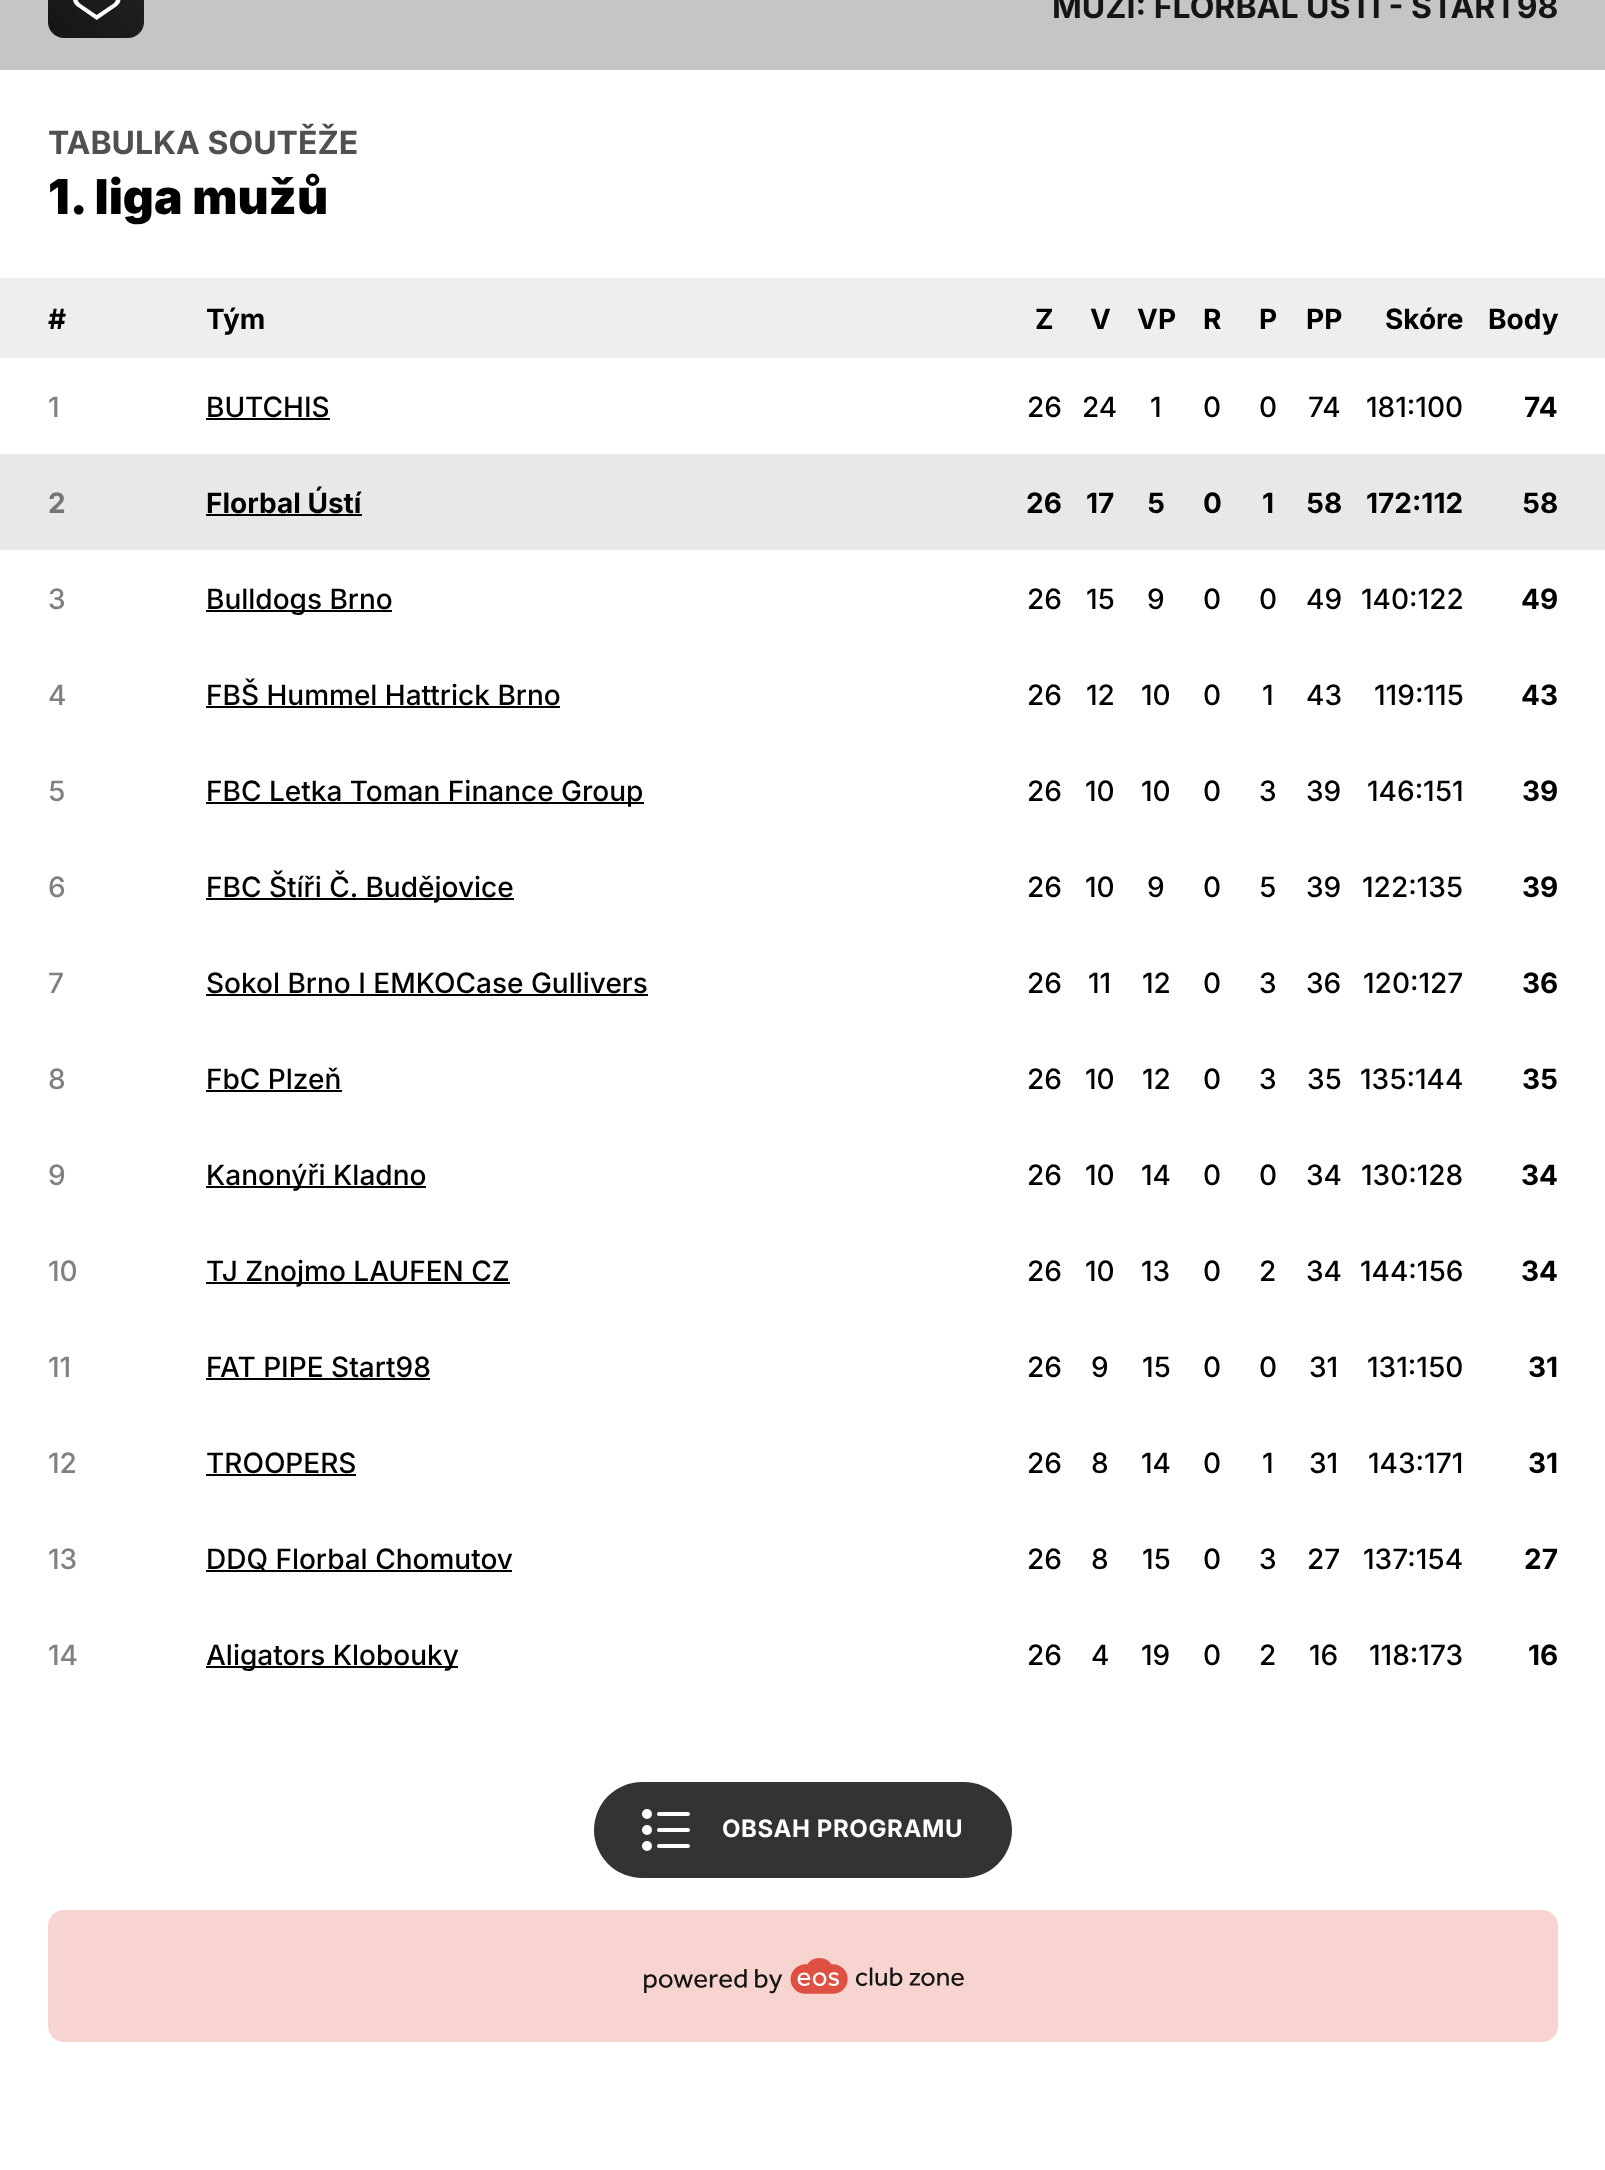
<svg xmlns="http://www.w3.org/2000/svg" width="1605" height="2170">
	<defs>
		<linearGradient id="g1" gradientUnits="userSpaceOnUse" x1="48" y1="38" x2="144" y2="-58"><stop offset="0" stop-color="#151515" /><stop offset="1" stop-color="#242424" /></linearGradient>
	</defs>
	<rect width="100%" height="100%" fill="#FFFFFF" />
	<rect x="0" y="0" width="1605" height="70" fill="#C5C5C5" />
	<rect x="48" y="-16" width="96" height="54" rx="16" fill="url(#g1)" />
	<image x="73" y="0" width="48" height="20" href="assets/img1.png" />
	<text x="1052" y="18" font-family="Inter" font-size="32" font-weight="700" fill="#151515">MUŽI: FLORBAL ÚSTÍ - START98</text>
	<text x="48" y="154" font-family="Inter" font-size="32" font-weight="700" fill="#505050">TABULKA SOUTĚŽE</text>
	<text x="48" y="214" font-family="Inter" font-size="48" font-weight="900" fill="#000000">1. liga mužů</text>
	<rect x="0" y="278" width="1605" height="80" fill="#EEEEEE" />
	<g font-family="Inter" font-size="28" font-weight="700" fill="#000000">
		<text x="48" y="329">#</text>
		<text x="206" y="329">Tým</text>
		<text x="1035" y="329">Z</text>
		<text x="1090" y="329">V</text>
		<text x="1137" y="329">VP</text>
		<text x="1203" y="329">R</text>
		<text x="1259" y="329">P</text>
		<text x="1306" y="329">PP</text>
		<text x="1385" y="329">Skóre</text>
		<text x="1488" y="329">Body</text>
	</g>
	<text x="48" y="417" font-family="Inter" font-size="28" font-weight="500" fill="#808080">1</text>
	<text x="206" y="417" font-family="Inter" font-size="28" font-weight="500" fill="#000000">BUTCHIS</text>
	<rect x="206" y="418" width="124" height="2" fill="#000000" />
	<g font-family="Inter" font-size="28" font-weight="500" fill="#000000">
		<text x="1027" y="417">26</text>
		<text x="1082" y="417">24</text>
		<text x="1150" y="417">1</text>
		<text x="1203" y="417">0</text>
		<text x="1259" y="417">0</text>
		<text x="1308" y="417">74</text>
		<text x="1366" y="417">181:100</text>
	</g>
	<text x="1524" y="417" font-family="Inter" font-size="28" font-weight="700" fill="#000000">74</text>
	<rect x="0" y="454" width="1605" height="96" fill="#E8E8E8" />
	<text x="48" y="513" font-family="Inter" font-size="28" font-weight="700" fill="#747474">2</text>
	<text x="206" y="513" font-family="Inter" font-size="28" font-weight="700" fill="#000000">Florbal Ústí</text>
	<rect x="206" y="514" width="156" height="2" fill="#000000" />
	<g font-family="Inter" font-size="28" font-weight="700" fill="#000000">
		<text x="1026" y="513">26</text>
		<text x="1086" y="513">17</text>
		<text x="1147" y="513">5</text>
		<text x="1203" y="513">0</text>
		<text x="1262" y="513">1</text>
		<text x="1306" y="513">58</text>
		<text x="1366" y="513">172:112</text>
		<text x="1522" y="513">58</text>
	</g>
	<text x="48" y="609" font-family="Inter" font-size="28" font-weight="500" fill="#808080">3</text>
	<rect x="206" y="610" width="186" height="2" fill="#000000" />
	<g font-family="Inter" font-size="28" font-weight="500" fill="#000000">
		<text x="206" y="609">Bulldogs Brno</text>
		<text x="1027" y="609">26</text>
		<text x="1086" y="609">15</text>
		<text x="1147" y="609">9</text>
		<text x="1203" y="609">0</text>
		<text x="1259" y="609">0</text>
		<text x="1306" y="609">49</text>
		<text x="1361" y="609">140:122</text>
	</g>
	<text x="1521" y="609" font-family="Inter" font-size="28" font-weight="700" fill="#000000">49</text>
	<text x="48" y="705" font-family="Inter" font-size="28" font-weight="500" fill="#808080">4</text>
	<text x="206" y="705" font-family="Inter" font-size="28" font-weight="500" fill="#000000">FBŠ Hummel Hattrick Brno</text>
	<rect x="206" y="706" width="354" height="2" fill="#000000" />
	<g font-family="Inter" font-size="28" font-weight="500" fill="#000000">
		<text x="1027" y="705">26</text>
		<text x="1086" y="705">12</text>
		<text x="1141" y="705">10</text>
		<text x="1203" y="705">0</text>
		<text x="1262" y="705">1</text>
		<text x="1306" y="705">43</text>
		<text x="1374" y="705">119:115</text>
	</g>
	<text x="1521" y="705" font-family="Inter" font-size="28" font-weight="700" fill="#000000">43</text>
	<text x="48" y="801" font-family="Inter" font-size="28" font-weight="500" fill="#808080">5</text>
	<rect x="206" y="802" width="438" height="2" fill="#000000" />
	<g font-family="Inter" font-size="28" font-weight="500" fill="#000000">
		<text x="206" y="801">FBC Letka Toman Finance Group</text>
		<text x="1027" y="801">26</text>
		<text x="1085" y="801">10</text>
		<text x="1141" y="801">10</text>
		<text x="1203" y="801">0</text>
		<text x="1259" y="801">3</text>
		<text x="1306" y="801">39</text>
		<text x="1367" y="801">146:151</text>
	</g>
	<text x="1522" y="801" font-family="Inter" font-size="28" font-weight="700" fill="#000000">39</text>
	<text x="48" y="897" font-family="Inter" font-size="28" font-weight="500" fill="#808080">6</text>
	<rect x="206" y="898" width="308" height="2" fill="#000000" />
	<g font-family="Inter" font-size="28" font-weight="500" fill="#000000">
		<text x="206" y="897">FBC Štíři Č. Budějovice</text>
		<text x="1027" y="897">26</text>
		<text x="1085" y="897">10</text>
		<text x="1147" y="897">9</text>
		<text x="1203" y="897">0</text>
		<text x="1259" y="897">5</text>
		<text x="1306" y="897">39</text>
		<text x="1362" y="897">122:135</text>
	</g>
	<text x="1522" y="897" font-family="Inter" font-size="28" font-weight="700" fill="#000000">39</text>
	<text x="48" y="993" font-family="Inter" font-size="28" font-weight="500" fill="#808080">7</text>
	<text x="206" y="993" font-family="Inter" font-size="28" font-weight="500" fill="#000000">Sokol Brno I EMKOCase Gullivers</text>
	<rect x="206" y="994" width="442" height="2" fill="#000000" />
	<g font-family="Inter" font-size="28" font-weight="500" fill="#000000">
		<text x="1027" y="993">26</text>
		<text x="1088" y="993">11</text>
		<text x="1142" y="993">12</text>
		<text x="1203" y="993">0</text>
		<text x="1259" y="993">3</text>
		<text x="1306" y="993">36</text>
		<text x="1363" y="993">120:127</text>
	</g>
	<text x="1522" y="993" font-family="Inter" font-size="28" font-weight="700" fill="#000000">36</text>
	<text x="48" y="1089" font-family="Inter" font-size="28" font-weight="500" fill="#808080">8</text>
	<text x="206" y="1089" font-family="Inter" font-size="28" font-weight="500" fill="#000000">FbC Plzeň</text>
	<rect x="206" y="1090" width="136" height="2" fill="#000000" />
	<g font-family="Inter" font-size="28" font-weight="500" fill="#000000">
		<text x="1027" y="1089">26</text>
		<text x="1085" y="1089">10</text>
		<text x="1142" y="1089">12</text>
		<text x="1203" y="1089">0</text>
		<text x="1259" y="1089">3</text>
		<text x="1307" y="1089">35</text>
		<text x="1360" y="1089">135:144</text>
	</g>
	<text x="1522" y="1089" font-family="Inter" font-size="28" font-weight="700" fill="#000000">35</text>
	<text x="48" y="1185" font-family="Inter" font-size="28" font-weight="500" fill="#808080">9</text>
	<rect x="206" y="1186" width="220" height="2" fill="#000000" />
	<g font-family="Inter" font-size="28" font-weight="500" fill="#000000">
		<text x="206" y="1185">Kanonýři Kladno</text>
		<text x="1027" y="1185">26</text>
		<text x="1085" y="1185">10</text>
		<text x="1141" y="1185">14</text>
		<text x="1203" y="1185">0</text>
		<text x="1259" y="1185">0</text>
		<text x="1306" y="1185">34</text>
		<text x="1361" y="1185">130:128</text>
	</g>
	<text x="1521" y="1185" font-family="Inter" font-size="28" font-weight="700" fill="#000000">34</text>
	<text x="48" y="1281" font-family="Inter" font-size="28" font-weight="500" fill="#808080">10</text>
	<rect x="206" y="1282" width="304" height="2" fill="#000000" />
	<g font-family="Inter" font-size="28" font-weight="500" fill="#000000">
		<text x="206" y="1281">TJ Znojmo LAUFEN CZ</text>
		<text x="1027" y="1281">26</text>
		<text x="1085" y="1281">10</text>
		<text x="1141" y="1281">13</text>
		<text x="1203" y="1281">0</text>
		<text x="1259" y="1281">2</text>
		<text x="1306" y="1281">34</text>
		<text x="1360" y="1281">144:156</text>
	</g>
	<text x="1521" y="1281" font-family="Inter" font-size="28" font-weight="700" fill="#000000">34</text>
	<text x="48" y="1377" font-family="Inter" font-size="28" font-weight="500" fill="#808080">11</text>
	<text x="206" y="1377" font-family="Inter" font-size="28" font-weight="500" fill="#000000">FAT PIPE Start98</text>
	<rect x="206" y="1378" width="224" height="2" fill="#000000" />
	<g font-family="Inter" font-size="28" font-weight="500" fill="#000000">
		<text x="1027" y="1377">26</text>
		<text x="1091" y="1377">9</text>
		<text x="1142" y="1377">15</text>
		<text x="1203" y="1377">0</text>
		<text x="1259" y="1377">0</text>
		<text x="1309" y="1377">31</text>
		<text x="1367" y="1377">131:150</text>
	</g>
	<text x="1528" y="1377" font-family="Inter" font-size="28" font-weight="700" fill="#000000">31</text>
	<text x="48" y="1473" font-family="Inter" font-size="28" font-weight="500" fill="#808080">12</text>
	<text x="206" y="1473" font-family="Inter" font-size="28" font-weight="500" fill="#000000">TROOPERS</text>
	<rect x="206" y="1474" width="150" height="2" fill="#000000" />
	<g font-family="Inter" font-size="28" font-weight="500" fill="#000000">
		<text x="1027" y="1473">26</text>
		<text x="1091" y="1473">8</text>
		<text x="1141" y="1473">14</text>
		<text x="1203" y="1473">0</text>
		<text x="1262" y="1473">1</text>
		<text x="1309" y="1473">31</text>
		<text x="1368" y="1473">143:171</text>
	</g>
	<text x="1528" y="1473" font-family="Inter" font-size="28" font-weight="700" fill="#000000">31</text>
	<text x="48" y="1569" font-family="Inter" font-size="28" font-weight="500" fill="#808080">13</text>
	<rect x="206" y="1570" width="306" height="2" fill="#000000" />
	<g font-family="Inter" font-size="28" font-weight="500" fill="#000000">
		<text x="206" y="1569">DDQ Florbal Chomutov</text>
		<text x="1027" y="1569">26</text>
		<text x="1091" y="1569">8</text>
		<text x="1142" y="1569">15</text>
		<text x="1203" y="1569">0</text>
		<text x="1259" y="1569">3</text>
		<text x="1307" y="1569">27</text>
		<text x="1363" y="1569">137:154</text>
	</g>
	<text x="1524" y="1569" font-family="Inter" font-size="28" font-weight="700" fill="#000000">27</text>
	<text x="48" y="1665" font-family="Inter" font-size="28" font-weight="500" fill="#808080">14</text>
	<rect x="206" y="1666" width="252" height="2" fill="#000000" />
	<g font-family="Inter" font-size="28" font-weight="500" fill="#000000">
		<text x="206" y="1665">Aligators Klobouky</text>
		<text x="1027" y="1665">26</text>
		<text x="1091" y="1665">4</text>
		<text x="1141" y="1665">19</text>
		<text x="1203" y="1665">0</text>
		<text x="1259" y="1665">2</text>
		<text x="1309" y="1665">16</text>
		<text x="1369" y="1665">118:173</text>
	</g>
	<text x="1528" y="1665" font-family="Inter" font-size="28" font-weight="700" fill="#000000">16</text>
	<rect x="594" y="1782" width="418" height="96" rx="48" fill="#333333" />
	<image x="642" y="1809" width="48" height="42" href="assets/img2.png" />
	<text x="722" y="1837" font-family="Inter" font-size="24" font-weight="700" letter-spacing="0.6" fill="#FFFFFF">OBSAH PROGRAMU</text>
	<rect x="48" y="1910" width="1510" height="132" rx="16" fill="#F8D4D0" />
	<image x="644" y="1958" width="320" height="36" href="assets/img3.png" />
</svg>
